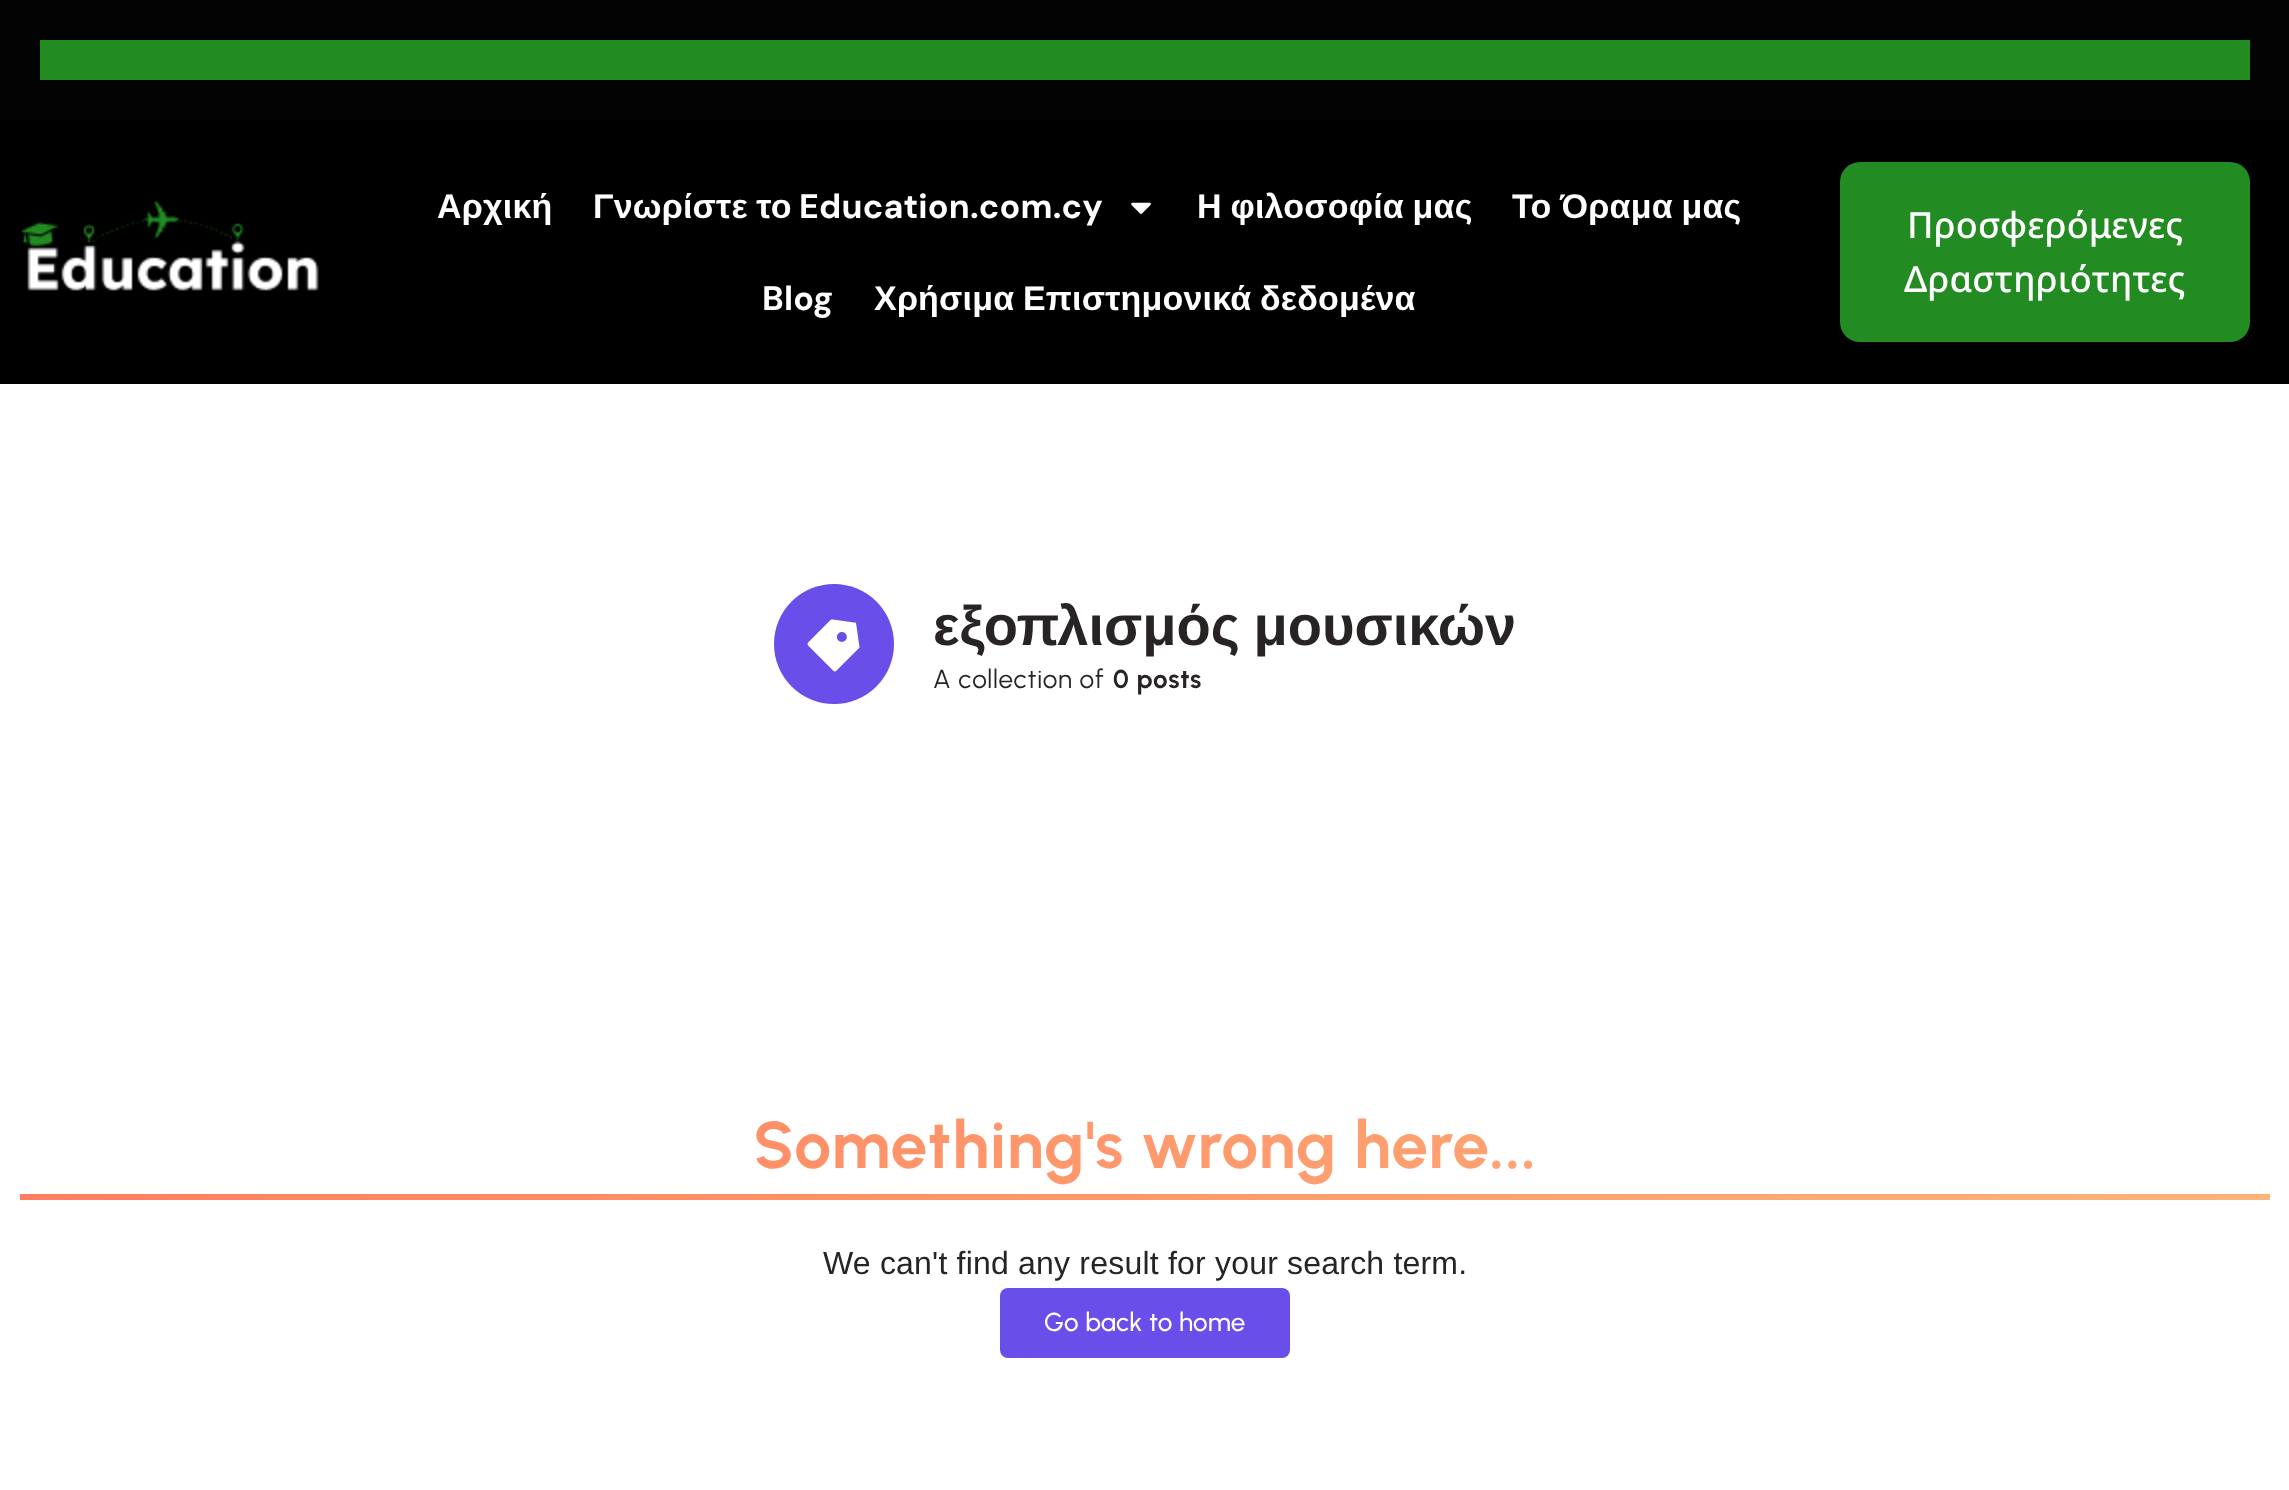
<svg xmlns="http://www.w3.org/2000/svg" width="2289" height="1490">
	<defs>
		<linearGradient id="g1" gradientUnits="userSpaceOnUse" x1="20" y1="1147" x2="2270" y2="1147"><stop offset="0" stop-color="#FF7E5F" /><stop offset="1" stop-color="#FEB47B" /></linearGradient>
		<linearGradient id="g2" gradientUnits="userSpaceOnUse" x1="20" y1="1197" x2="2270" y2="1197"><stop offset="0" stop-color="#FF7E5F" /><stop offset="1" stop-color="#FEB47B" /></linearGradient>
	</defs>
	<rect width="100%" height="100%" fill="#FFFFFF" />
	<rect x="0" y="0" width="2289" height="120" fill="#030303" />
	<rect x="40" y="40" width="2210" height="40" fill="#228B22" />
	<rect x="0" y="120" width="2289" height="264" fill="#000000" />
	<image x="20" y="200" width="299" height="91" href="assets/img1.png" />
	<g font-family="Liberation Sans" font-size="34" font-weight="700" letter-spacing="0.2" fill="#FFFFFF">
		<text x="437" y="218">Αρχική</text>
		<text x="593" y="218" word-spacing="-1">Γνωρίστε το</text>
	</g>
	<text x="799" y="218" font-family="DM Sans" font-size="34" font-weight="700" letter-spacing="0.2" fill="#FFFFFF">Education.com.cy</text>
	<image x="1131" y="202" width="20" height="12" href="assets/img2.png" />
	<g font-family="Liberation Sans" font-size="34" font-weight="700" letter-spacing="0.2" fill="#FFFFFF">
		<text x="1197" y="218" word-spacing="-1">Η φιλοσοφία μας</text>
		<text x="1512" y="218" word-spacing="-1">Το Όραμα μας</text>
	</g>
	<text x="762" y="310" font-family="DM Sans" font-size="34" font-weight="700" letter-spacing="0.2" fill="#FFFFFF">Blog</text>
	<text x="874" y="310" word-spacing="-1" font-family="Liberation Sans" font-size="34" font-weight="700" letter-spacing="0.2" fill="#FFFFFF">Χρήσιμα Επιστημονικά δεδομένα</text>
	<rect x="1840" y="162" width="410" height="180" rx="20" fill="#228B22" />
	<g font-family="Noto Sans" font-size="36" font-weight="500" letter-spacing="0.2" fill="#FFFFFF">
		<text x="1907" y="238">Προσφερόμενες</text>
		<text x="1904" y="292">Δραστηριότητες</text>
	</g>
	<circle cx="834" cy="644" r="60" fill="#6A4EE9" />
	<image x="807" y="619" width="53" height="53" href="assets/img3.png" />
	<text x="933" y="645" word-spacing="-2" font-family="Liberation Sans" font-size="56" font-weight="700" fill="#282424">εξοπλισμός μουσικών</text>
	<text x="933" y="688" font-family="Urbanist" font-size="26" letter-spacing="0.75" fill="#282424">A collection of</text>
	<text x="1113" y="688" font-family="Urbanist" font-size="26" font-weight="700" letter-spacing="0.75" fill="#282424">0 posts</text>
	<text x="753" y="1168" font-family="Urbanist" font-size="66" font-weight="700" letter-spacing="1" fill="url(#g1)">Something's wrong here...</text>
	<rect x="20" y="1194" width="2250" height="6" fill="url(#g2)" />
	<text x="823" y="1274" font-family="Liberation Sans" font-size="32" letter-spacing="0.2" fill="#282424">We can't find any result for your search term.</text>
	<rect x="1000" y="1288" width="290" height="70" rx="8" fill="#6A4EE9" />
	<text x="1044" y="1331" font-family="Urbanist" font-size="26" font-weight="500" letter-spacing="0.2" fill="#FFFFFF">Go back to home</text>
</svg>
